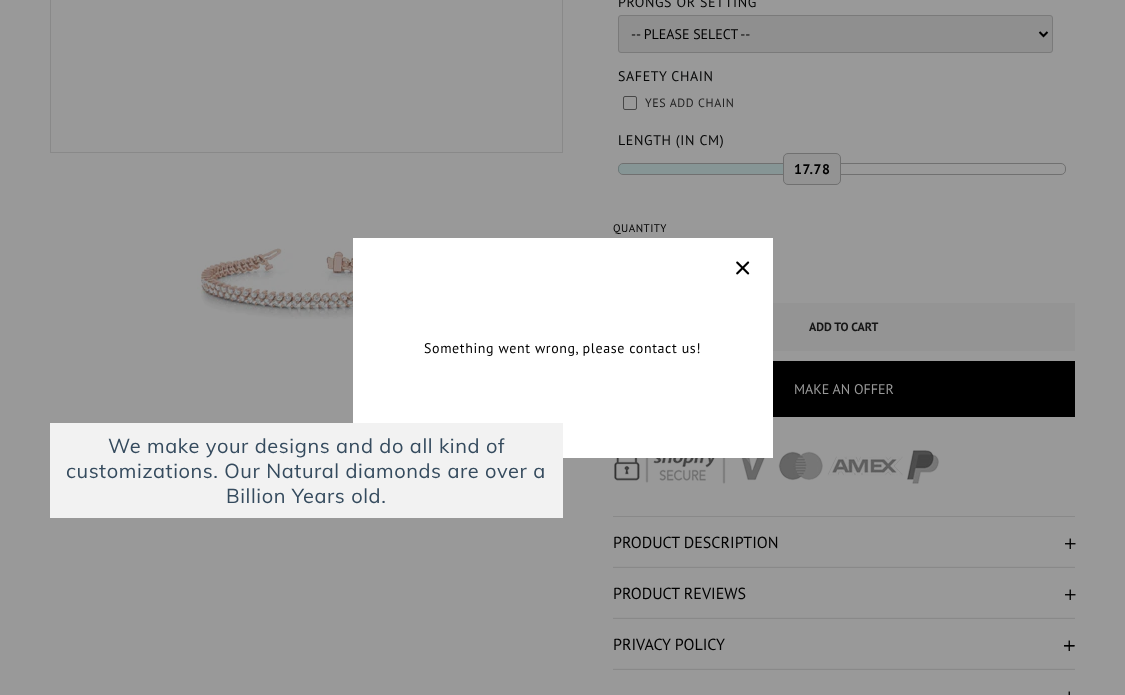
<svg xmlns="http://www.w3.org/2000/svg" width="1125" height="695">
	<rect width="100%" height="100%" fill="#999999" />
	<rect x="50.5" y="-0.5" width="512" height="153" fill="none" stroke="#898989" />
	<image x="197" y="248" width="156" height="71" href="assets/img1.png" />
	<image x="614" y="450" width="325" height="34" href="assets/img2.png" />
	<rect x="353" y="238" width="420" height="220" fill="#FFFFFF" />
	<rect x="50" y="423" width="513" height="95" fill="#F2F2F2" />
	<g font-family="Muli" font-size="20" letter-spacing="0.6" fill="#354B5E">
		<text x="108" y="453">We make your designs and do all kind of</text>
		<text x="66" y="478">customizations. Our Natural diamonds are over a</text>
		<text x="226" y="503">Billion Years old.</text>
	</g>
	<text x="618" y="7" font-family="PT Sans" font-size="14" letter-spacing="0.6" fill="#050606">PRONGS OR SETTING</text>
	<rect x="618.5" y="15.5" width="434" height="37" rx="2.5" fill="#8F8F8F" stroke="#7A7A7A" />
	<path d="M1039.5 32L1043.5 36L1047.5 32" fill="none" stroke="#000000" stroke-width="2" />
	<text x="631" y="39" font-family="PT Sans" font-size="14" fill="#000000">-- PLEASE SELECT --</text>
	<text x="618" y="81" font-family="PT Sans" font-size="14" letter-spacing="0.6" fill="#050606">SAFETY CHAIN</text>
	<rect x="623.5" y="96.5" width="13" height="13" rx="1.5" fill="none" stroke="#474747" />
	<text x="645" y="107" font-family="PT Sans" font-size="12" letter-spacing="0.6" fill="#1F1F1F">YES ADD CHAIN</text>
	<text x="618" y="145" font-family="PT Sans" font-size="14" letter-spacing="0.6" fill="#050606">LENGTH (IN CM)</text>
	<rect x="618.5" y="163.5" width="447" height="11" rx="4.5" fill="none" stroke="#707070" />
	<path d="M623 164H791V174H623C620 174 618 172 618 169C618 166 620 164 623 164Z" fill="#698F8F" fill-opacity="0.4" />
	<rect x="783.5" y="153.5" width="57" height="31" rx="4.5" fill="#939393" stroke="#707070" />
	<text x="794" y="174" font-family="PT Sans" font-size="14" font-weight="700" letter-spacing="0.6" fill="#000000">17.78</text>
	<text x="613" y="232" font-family="PT Sans" font-size="11" letter-spacing="0.5" fill="#000000">QUANTITY</text>
	<rect x="773" y="303" width="302" height="48" fill="#949494" />
	<text x="809" y="331" font-family="PT Sans" font-size="12" font-weight="700" fill="#161616">ADD TO CART</text>
	<rect x="773" y="361" width="302" height="56" fill="#000000" />
	<text x="794" y="394" font-family="PT Sans" font-size="14" fill="#999999">MAKE AN OFFER</text>
	<rect x="613" y="618" width="462" height="1" fill="#898989" />
	<rect x="613" y="516" width="462" height="1" fill="#898989" />
	<rect x="613" y="566" width="462" height="1" fill="#969696" />
	<text x="613" y="548" font-family="PT Sans" font-size="16" fill="#000000">PRODUCT DESCRIPTION</text>
	<image x="1065" y="538" width="11" height="11" href="assets/img3.png" />
	<rect x="613" y="567" width="462" height="1" fill="#898989" />
	<rect x="613" y="617" width="462" height="1" fill="#969696" />
	<text x="613" y="599" font-family="PT Sans" font-size="16" fill="#000000">PRODUCT REVIEWS</text>
	<image x="1065" y="589" width="11" height="11" href="assets/img3.png" />
	<rect x="613" y="669" width="462" height="1" fill="#898989" />
	<rect x="613" y="668" width="462" height="1" fill="#969696" />
	<text x="613" y="650" font-family="PT Sans" font-size="16" fill="#000000">PRIVACY POLICY</text>
	<image x="1064" y="640" width="11" height="11" href="assets/img3.png" />
	<image x="1064" y="645" width="11" height="2" href="assets/img4.png" />
	<image x="1068" y="691" width="2" height="4" href="assets/img5.png" />
	<image x="736" y="261" width="14" height="14" href="assets/img6.png" />
	<text x="424" y="353" font-family="PT Sans" font-size="14" letter-spacing="0.6" fill="#000000">Something went wrong, please contact us!</text>
</svg>
